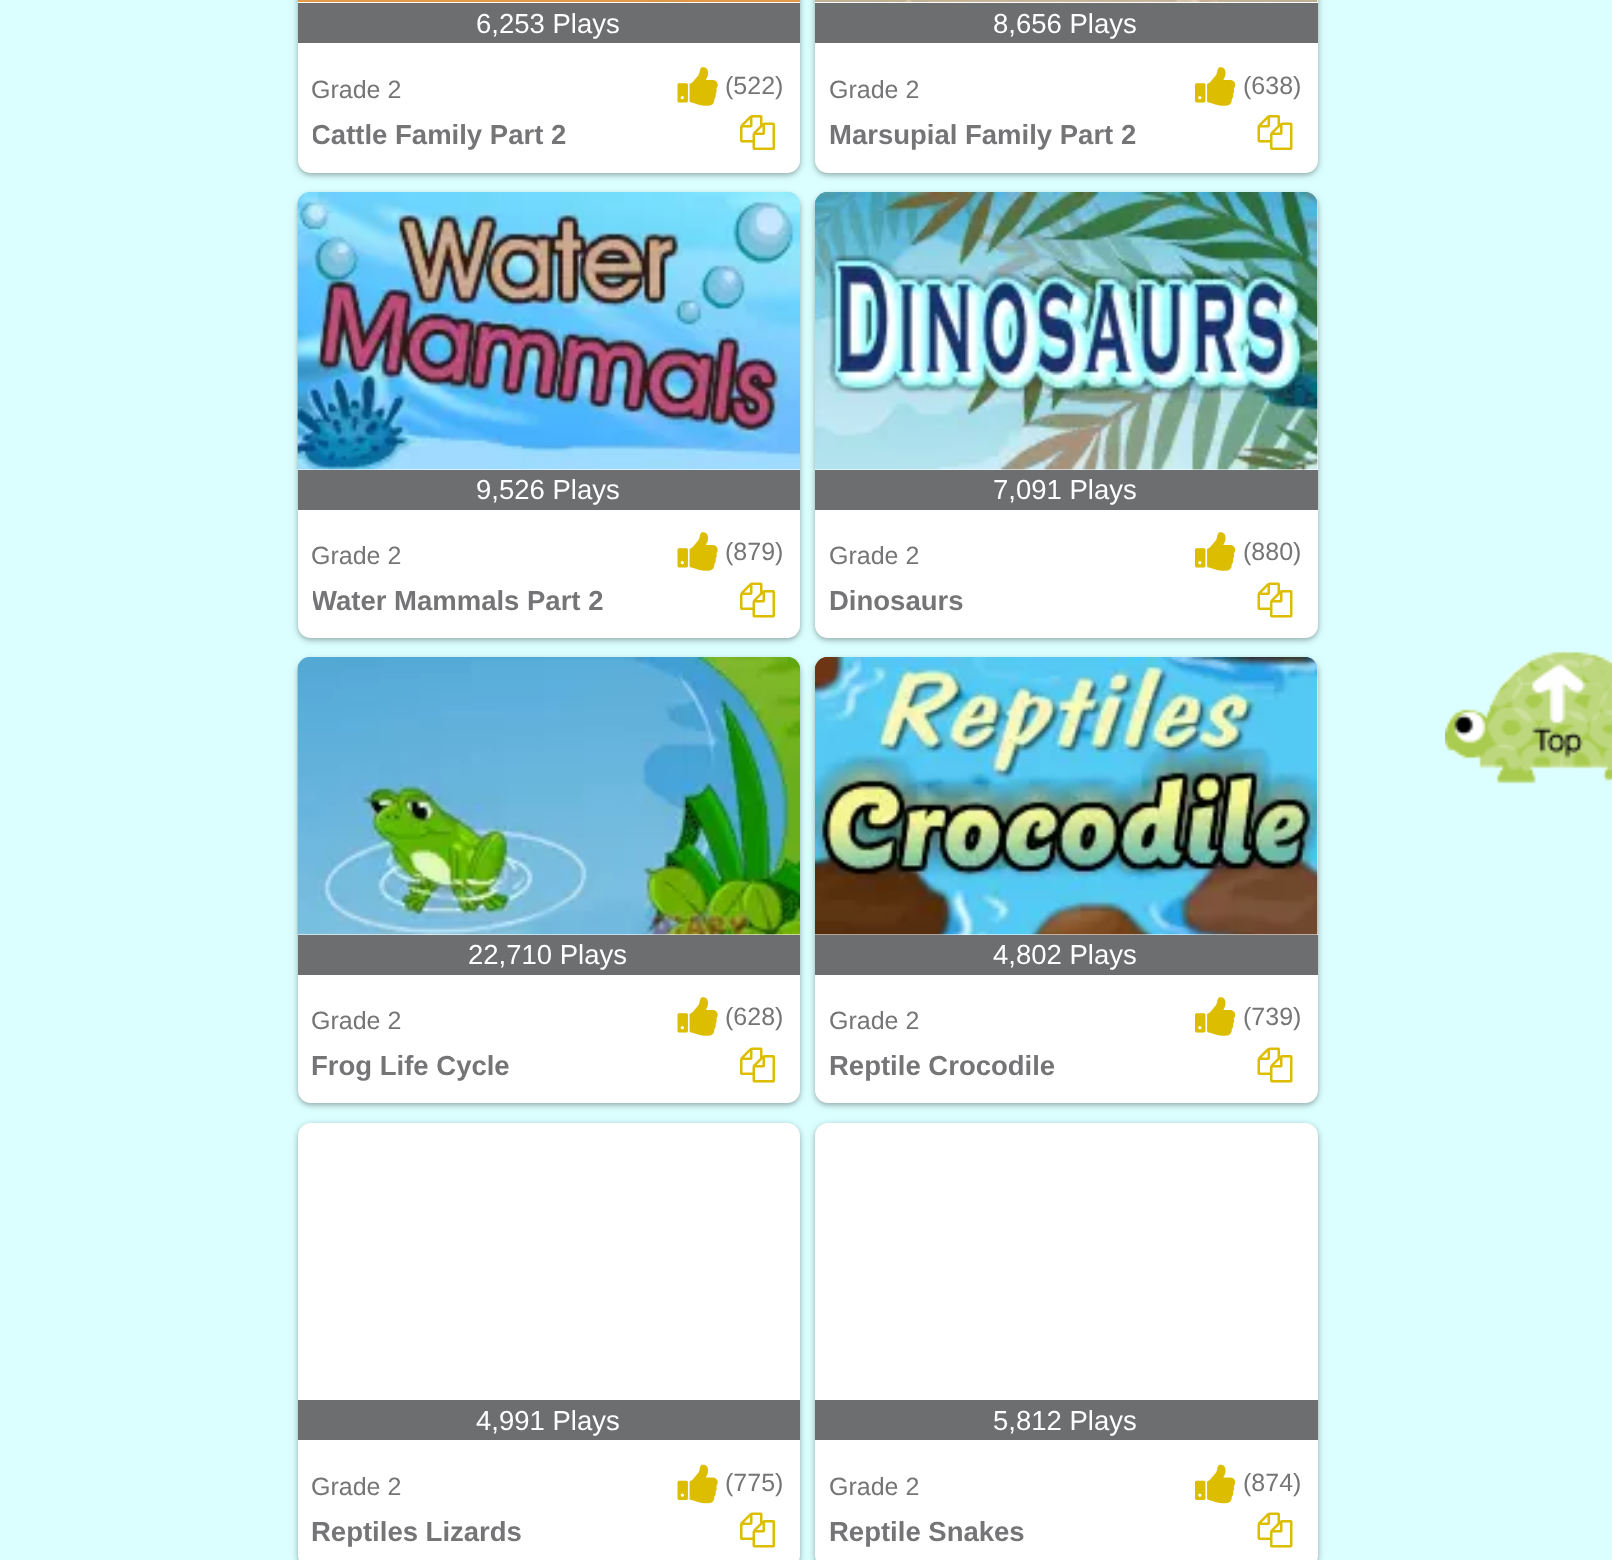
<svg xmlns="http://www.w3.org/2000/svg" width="1612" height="1560">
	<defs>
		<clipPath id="clip1"><rect x="313" y="118" width="422" height="40" /></clipPath>
		<clipPath id="clip2"><rect x="313" y="583" width="422" height="40" /></clipPath>
	</defs>
	<rect width="100%" height="100%" fill="#DBFFFF" />
	<rect x="298" y="-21" width="502" height="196" rx="13" fill="#000000" fill-opacity="0.24" filter="blur(2.5px)" />
	<rect x="298" y="-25" width="502" height="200" rx="13" fill="#000000" fill-opacity="0.12" filter="blur(4px)" />
	<rect x="298" y="-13" width="502" height="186" rx="13" fill="#FFFFFF" />
	<image x="298" y="0" width="502" height="2" href="assets/img1.png" />
	<rect x="297" y="0" width="1" height="2" fill="#D3CEB3" />
	<rect x="298" y="3" width="502" height="40" fill="#6D6E70" />
	<text x="476" y="33" font-family="Liberation Sans" font-size="27.5" fill="#FFFFFF">6,253 Plays</text>
	<text x="311" y="98" font-family="Liberation Sans" font-size="25" fill="#757577">Grade 2</text>
	<image x="677" y="67" width="41" height="39" href="assets/img2.png" />
	<text x="725" y="94" font-family="Liberation Sans" font-size="25" fill="#757577">(522)</text>
	<g clip-path="url(#clip1)">
		<text x="311" y="144" font-family="Liberation Sans" font-size="27.5" font-weight="700" fill="#757577">Cattle Family Part 2</text>
	</g>
	<image x="740" y="115" width="35" height="35" href="assets/img3.png" />
	<rect x="815" y="-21" width="503" height="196" rx="13" fill="#000000" fill-opacity="0.24" filter="blur(2.5px)" />
	<rect x="815" y="-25" width="503" height="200" rx="13" fill="#000000" fill-opacity="0.12" filter="blur(4px)" />
	<rect x="815" y="-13" width="503" height="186" rx="13" fill="#FFFFFF" />
	<image x="815" y="0" width="502" height="2" href="assets/img4.png" />
	<rect x="1317" y="0" width="1" height="2" fill="#E9E3D8" />
	<rect x="815" y="3" width="503" height="40" fill="#6D6E70" />
	<text x="993" y="33" font-family="Liberation Sans" font-size="27.5" fill="#FFFFFF">8,656 Plays</text>
	<text x="829" y="98" font-family="Liberation Sans" font-size="25" fill="#757577">Grade 2</text>
	<image x="1195" y="67" width="41" height="39" href="assets/img5.png" />
	<text x="1243" y="94" font-family="Liberation Sans" font-size="25" fill="#757577">(638)</text>
	<text x="829" y="144" font-family="Liberation Sans" font-size="27.5" font-weight="700" fill="#757577">Marsupial Family Part 2</text>
	<image x="1257" y="115" width="36" height="35" href="assets/img6.png" />
	<rect x="298" y="195" width="502" height="445" rx="13" fill="#000000" fill-opacity="0.24" filter="blur(2.5px)" />
	<rect x="298" y="195" width="502" height="445" rx="13" fill="#000000" fill-opacity="0.12" filter="blur(4px)" />
	<rect x="298" y="193" width="502" height="445" rx="13" fill="#FFFFFF" />
	<image x="297" y="192" width="503" height="278" href="assets/img7.png" />
	<image x="297" y="192" width="503" height="278" href="assets/img8.png" />
	<rect x="298" y="470" width="502" height="40" fill="#6D6E70" />
	<text x="476" y="499" font-family="Liberation Sans" font-size="27.5" fill="#FFFFFF">9,526 Plays</text>
	<text x="311" y="564" font-family="Liberation Sans" font-size="25" fill="#757577">Grade 2</text>
	<image x="677" y="532" width="41" height="39" href="assets/img2.png" />
	<text x="725" y="560" font-family="Liberation Sans" font-size="25" fill="#757577">(879)</text>
	<g clip-path="url(#clip2)">
		<text x="311" y="610" font-family="Liberation Sans" font-size="27.5" font-weight="700" fill="#757577">Water Mammals Part 2</text>
	</g>
	<image x="740" y="582" width="35" height="36" href="assets/img9.png" />
	<rect x="815" y="195" width="503" height="445" rx="13" fill="#000000" fill-opacity="0.24" filter="blur(2.5px)" />
	<rect x="815" y="195" width="503" height="445" rx="13" fill="#000000" fill-opacity="0.12" filter="blur(4px)" />
	<rect x="815" y="193" width="503" height="445" rx="13" fill="#FFFFFF" />
	<image x="815" y="192" width="503" height="278" href="assets/img10.png" />
	<image x="815" y="192" width="503" height="278" href="assets/img11.png" />
	<rect x="815" y="470" width="503" height="40" fill="#6D6E70" />
	<text x="993" y="499" font-family="Liberation Sans" font-size="27.5" fill="#FFFFFF">7,091 Plays</text>
	<text x="829" y="564" font-family="Liberation Sans" font-size="25" fill="#757577">Grade 2</text>
	<image x="1195" y="532" width="41" height="39" href="assets/img5.png" />
	<text x="1243" y="560" font-family="Liberation Sans" font-size="25" fill="#757577">(880)</text>
	<text x="829" y="610" font-family="Liberation Sans" font-size="27.5" font-weight="700" fill="#757577">Dinosaurs</text>
	<image x="1257" y="582" width="36" height="36" href="assets/img12.png" />
	<rect x="298" y="660" width="502" height="445" rx="13" fill="#000000" fill-opacity="0.24" filter="blur(2.5px)" />
	<rect x="298" y="660" width="502" height="445" rx="13" fill="#000000" fill-opacity="0.12" filter="blur(4px)" />
	<rect x="298" y="658" width="502" height="445" rx="13" fill="#FFFFFF" />
	<image x="297" y="657" width="503" height="278" href="assets/img13.png" />
	<image x="297" y="657" width="503" height="278" href="assets/img14.png" />
	<rect x="298" y="935" width="502" height="40" fill="#6D6E70" />
	<text x="468" y="964" font-family="Liberation Sans" font-size="27.5" fill="#FFFFFF">22,710 Plays</text>
	<text x="311" y="1029" font-family="Liberation Sans" font-size="25" fill="#757577">Grade 2</text>
	<image x="677" y="997" width="41" height="39" href="assets/img2.png" />
	<text x="725" y="1025" font-family="Liberation Sans" font-size="25" fill="#757577">(628)</text>
	<text x="311" y="1075" font-family="Liberation Sans" font-size="27.5" font-weight="700" fill="#757577">Frog Life Cycle</text>
	<image x="740" y="1047" width="35" height="36" href="assets/img9.png" />
	<rect x="815" y="660" width="503" height="445" rx="13" fill="#000000" fill-opacity="0.24" filter="blur(2.5px)" />
	<rect x="815" y="660" width="503" height="445" rx="13" fill="#000000" fill-opacity="0.12" filter="blur(4px)" />
	<rect x="815" y="658" width="503" height="445" rx="13" fill="#FFFFFF" />
	<image x="815" y="657" width="503" height="278" href="assets/img15.png" />
	<image x="815" y="657" width="503" height="278" href="assets/img16.png" />
	<rect x="815" y="935" width="503" height="40" fill="#6D6E70" />
	<text x="993" y="964" font-family="Liberation Sans" font-size="27.5" fill="#FFFFFF">4,802 Plays</text>
	<text x="829" y="1029" font-family="Liberation Sans" font-size="25" fill="#757577">Grade 2</text>
	<image x="1195" y="997" width="41" height="39" href="assets/img5.png" />
	<text x="1243" y="1025" font-family="Liberation Sans" font-size="25" fill="#757577">(739)</text>
	<text x="829" y="1075" font-family="Liberation Sans" font-size="27.5" font-weight="700" fill="#757577">Reptile Crocodile</text>
	<image x="1257" y="1047" width="36" height="36" href="assets/img12.png" />
	<rect x="298" y="1125" width="502" height="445" rx="13" fill="#000000" fill-opacity="0.24" filter="blur(2.5px)" />
	<rect x="298" y="1125" width="502" height="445" rx="13" fill="#000000" fill-opacity="0.12" filter="blur(4px)" />
	<rect x="298" y="1123" width="502" height="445" rx="13" fill="#FFFFFF" />
	<rect x="298" y="1400" width="502" height="40" fill="#6D6E70" />
	<text x="476" y="1430" font-family="Liberation Sans" font-size="27.5" fill="#FFFFFF">4,991 Plays</text>
	<text x="311" y="1495" font-family="Liberation Sans" font-size="25" fill="#757577">Grade 2</text>
	<image x="677" y="1464" width="41" height="40" href="assets/img17.png" />
	<text x="725" y="1491" font-family="Liberation Sans" font-size="25" fill="#757577">(775)</text>
	<text x="311" y="1541" font-family="Liberation Sans" font-size="27.5" font-weight="700" fill="#757577">Reptiles Lizards</text>
	<image x="740" y="1512" width="35" height="36" href="assets/img9.png" />
	<rect x="815" y="1125" width="503" height="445" rx="13" fill="#000000" fill-opacity="0.24" filter="blur(2.5px)" />
	<rect x="815" y="1125" width="503" height="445" rx="13" fill="#000000" fill-opacity="0.12" filter="blur(4px)" />
	<rect x="815" y="1123" width="503" height="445" rx="13" fill="#FFFFFF" />
	<rect x="815" y="1400" width="503" height="40" fill="#6D6E70" />
	<text x="993" y="1430" font-family="Liberation Sans" font-size="27.5" fill="#FFFFFF">5,812 Plays</text>
	<text x="829" y="1495" font-family="Liberation Sans" font-size="25" fill="#757577">Grade 2</text>
	<image x="1195" y="1464" width="41" height="40" href="assets/img18.png" />
	<text x="1243" y="1491" font-family="Liberation Sans" font-size="25" fill="#757577">(874)</text>
	<text x="829" y="1541" font-family="Liberation Sans" font-size="27.5" font-weight="700" fill="#757577">Reptile Snakes</text>
	<image x="1257" y="1512" width="36" height="36" href="assets/img12.png" />
	<image x="1445" y="650" width="167" height="134" href="assets/img19.png" />
</svg>
